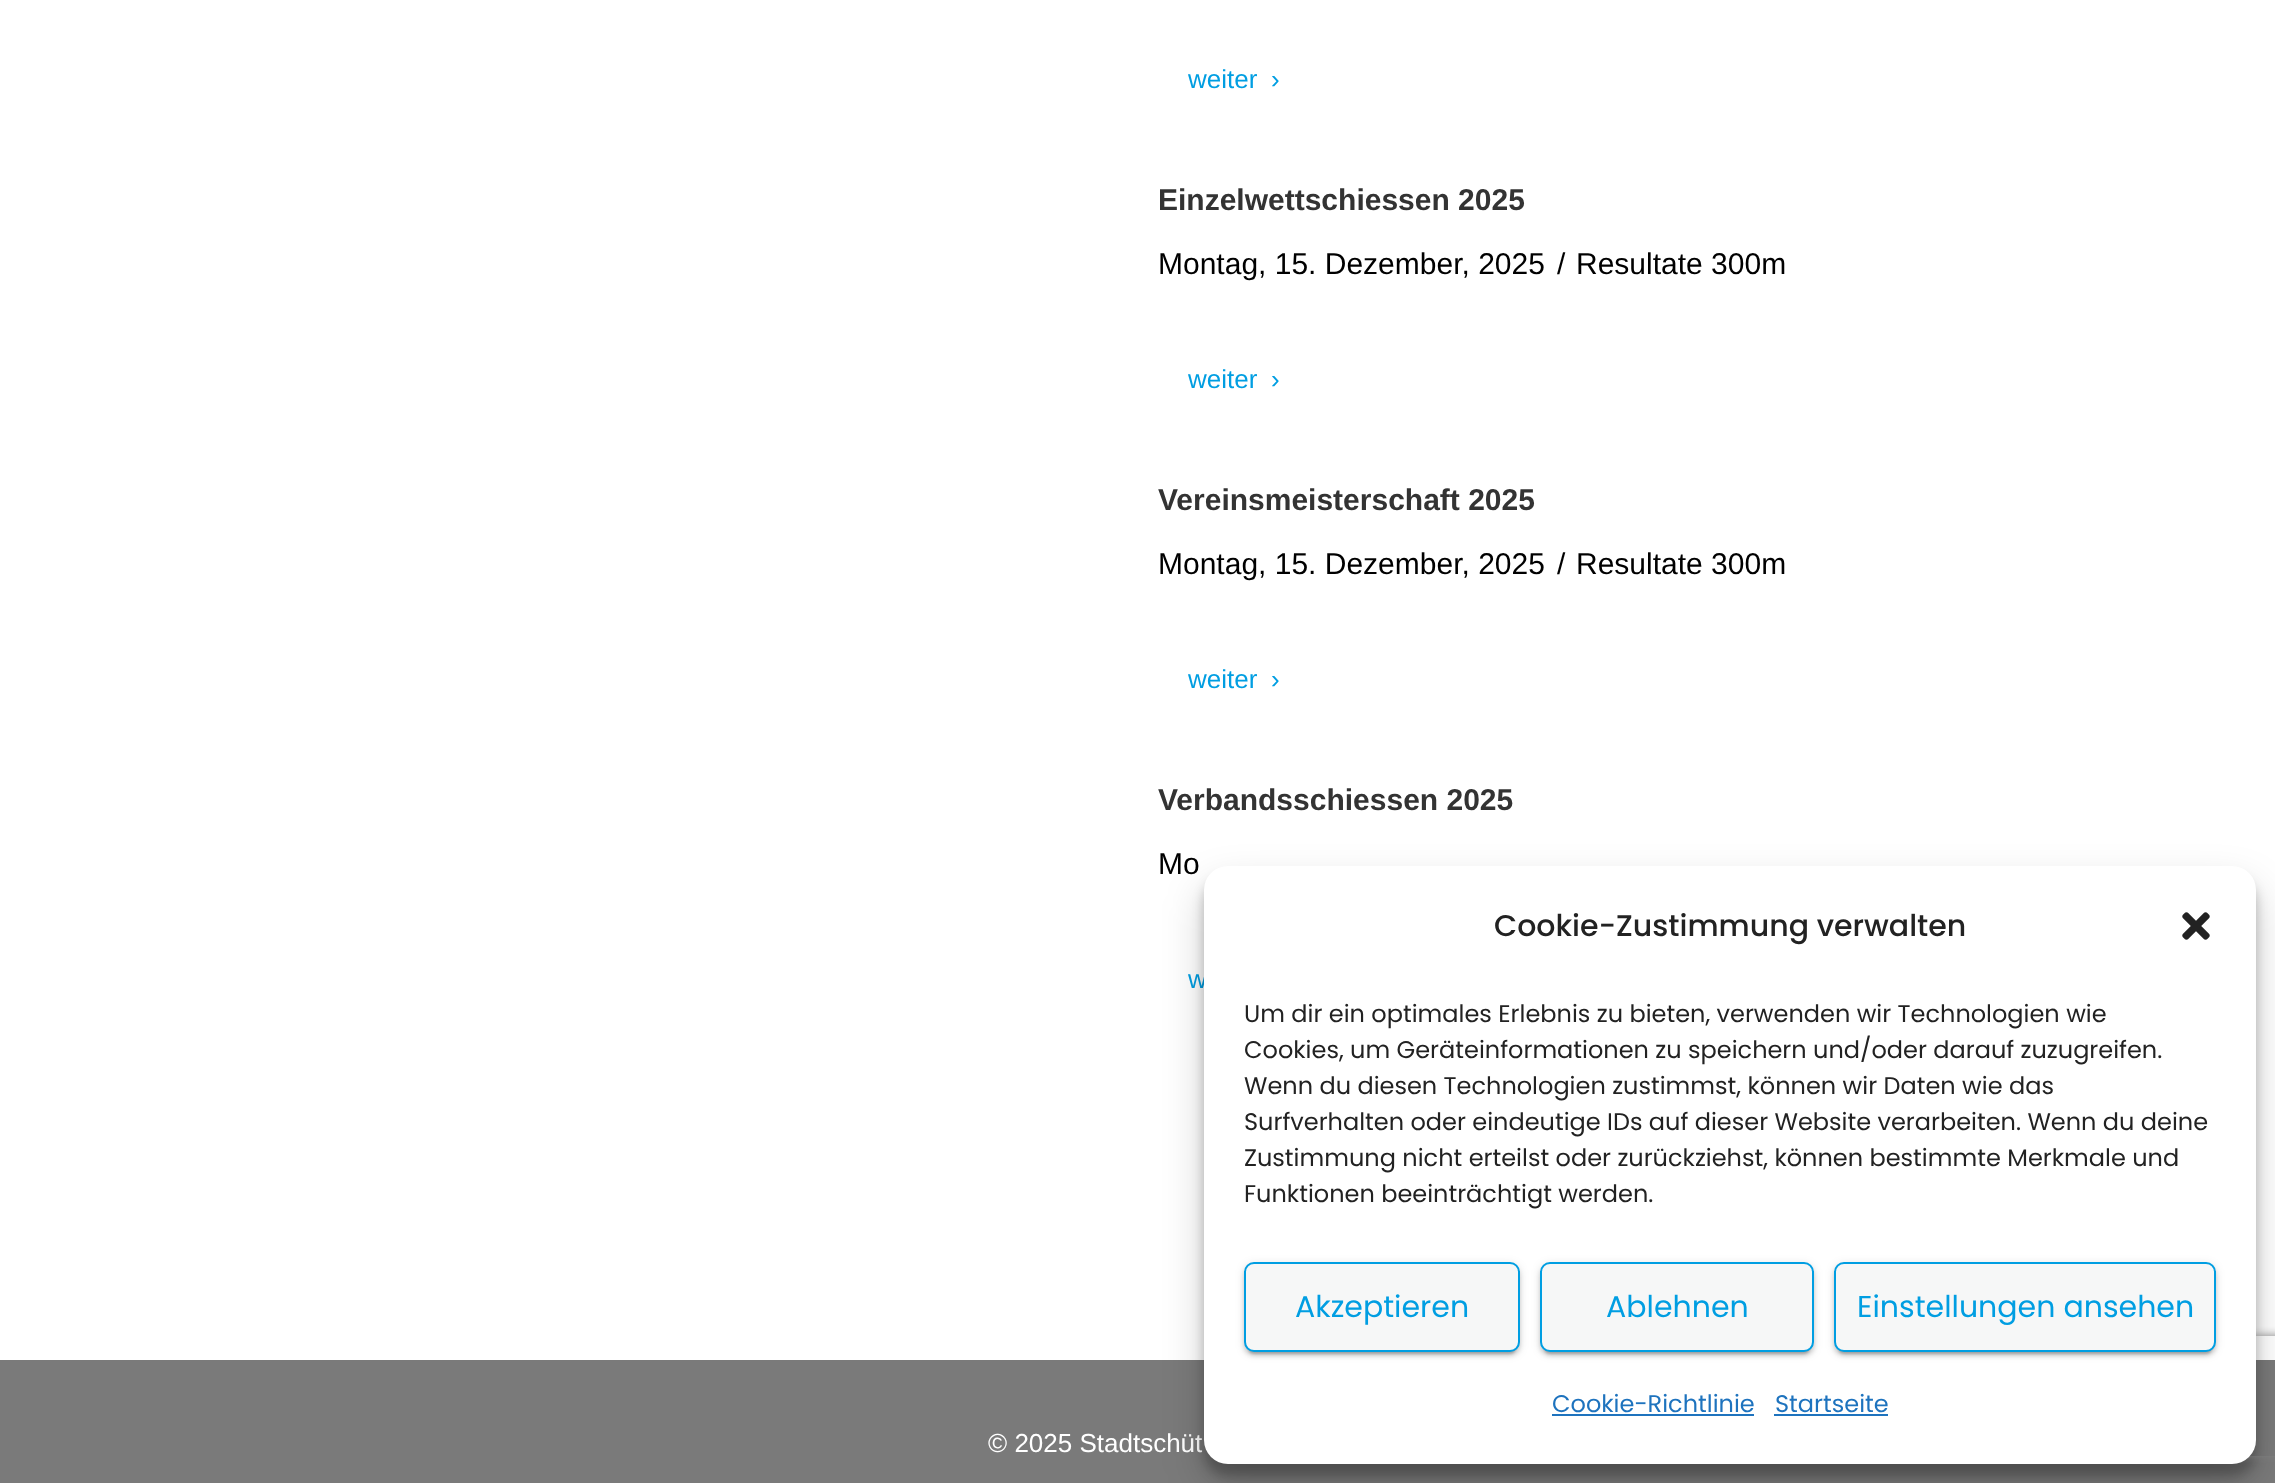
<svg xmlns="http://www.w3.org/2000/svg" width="2275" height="1483">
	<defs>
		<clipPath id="clip1"><path d="M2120 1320H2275V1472H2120ZM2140 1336H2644C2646 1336 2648 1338 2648 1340V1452C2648 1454 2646 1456 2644 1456H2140C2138 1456 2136 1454 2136 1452V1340C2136 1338 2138 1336 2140 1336Z" clip-rule="evenodd" /></clipPath>
	</defs>
	<rect width="100%" height="100%" fill="#FFFFFF" />
	<g font-family="Liberation Sans" font-size="26" fill="#009EE2">
		<text x="1188" y="88">weiter</text>
		<text x="1271" y="88">›</text>
	</g>
	<text x="1158" y="210" font-family="Liberation Sans" font-size="30" font-weight="700" fill="#333333">Einzelwettschiessen 2025</text>
	<g font-family="Liberation Sans" font-size="30" fill="#000000">
		<text x="1158" y="274">Montag, 15. Dezember, 2025</text>
		<text x="1557" y="274">/</text>
		<text x="1576" y="274">Resultate 300m</text>
	</g>
	<g font-family="Liberation Sans" font-size="26" fill="#009EE2">
		<text x="1188" y="388">weiter</text>
		<text x="1271" y="388">›</text>
	</g>
	<text x="1158" y="510" font-family="Liberation Sans" font-size="30" font-weight="700" fill="#333333">Vereinsmeisterschaft 2025</text>
	<g font-family="Liberation Sans" font-size="30" fill="#000000">
		<text x="1158" y="574">Montag, 15. Dezember, 2025</text>
		<text x="1557" y="574">/</text>
		<text x="1576" y="574">Resultate 300m</text>
	</g>
	<g font-family="Liberation Sans" font-size="26" fill="#009EE2">
		<text x="1188" y="688">weiter</text>
		<text x="1271" y="688">›</text>
	</g>
	<text x="1158" y="810" font-family="Liberation Sans" font-size="30" font-weight="700" fill="#333333">Verbandsschiessen 2025</text>
	<text x="1158" y="874" font-family="Liberation Sans" font-size="30" fill="#000000">Mo</text>
	<text x="1188" y="988" font-family="Liberation Sans" font-size="26" fill="#009EE2">w</text>
	<rect x="0" y="1360" width="2275" height="123" fill="#7A7A7A" />
	<text x="988" y="1452" font-family="Liberation Sans" font-size="26" fill="#FFFFFF">© 2025 Stadtschüt</text>
	<rect x="1204" y="878" width="1052" height="598" rx="24" fill="#000000" fill-opacity="0.23" filter="blur(6px)" />
	<rect x="1204" y="886" width="1052" height="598" rx="24" fill="#000000" fill-opacity="0.19" filter="blur(20px)" />
	<g clip-path="url(#clip1)">
		<rect x="2136" y="1336" width="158" height="120" rx="4" fill="#808080" filter="blur(5px)" />
	</g>
	<rect x="1204" y="866" width="1052" height="598" rx="24" fill="#FFFFFF" />
	<text x="1494" y="936" font-family="Poppins" font-size="30" font-weight="500" fill="#222222">Cookie-Zustimmung verwalten</text>
	<image x="2182" y="912" width="28" height="28" href="assets/img1.png" />
	<g font-family="Poppins" font-size="24" fill="#222222">
		<text x="1244" y="1022">Um dir ein optimales Erlebnis zu bieten, verwenden wir Technologien wie</text>
		<text x="1244" y="1058">Cookies, um Geräteinformationen zu speichern und/oder darauf zuzugreifen.</text>
		<text x="1244" y="1094">Wenn du diesen Technologien zustimmst, können wir Daten wie das</text>
		<text x="1244" y="1130">Surfverhalten oder eindeutige IDs auf dieser Website verarbeiten. Wenn du deine</text>
		<text x="1244" y="1166">Zustimmung nicht erteilst oder zurückziehst, können bestimmte Merkmale und</text>
		<text x="1244" y="1202">Funktionen beeinträchtigt werden.</text>
	</g>
	<rect x="1244" y="1264" width="276" height="90" rx="10" fill="#000000" fill-opacity="0.12" filter="blur(5px)" />
	<rect x="1248" y="1272" width="268" height="82" rx="6" fill="#000000" fill-opacity="0.2" filter="blur(1px)" />
	<rect x="1244" y="1266" width="276" height="90" rx="10" fill="#000000" fill-opacity="0.14" filter="blur(2px)" />
	<rect x="1245" y="1263" width="274" height="88" rx="9" fill="#F6F7F7" stroke="#009EE2" stroke-width="2" />
	<text x="1295" y="1317" font-family="Poppins" font-size="30" fill="#009EE2">Akzeptieren</text>
	<rect x="1540" y="1264" width="274" height="90" rx="10" fill="#000000" fill-opacity="0.12" filter="blur(5px)" />
	<rect x="1544" y="1272" width="266" height="82" rx="6" fill="#000000" fill-opacity="0.2" filter="blur(1px)" />
	<rect x="1540" y="1266" width="274" height="90" rx="10" fill="#000000" fill-opacity="0.14" filter="blur(2px)" />
	<rect x="1541" y="1263" width="272" height="88" rx="9" fill="#F6F7F7" stroke="#009EE2" stroke-width="2" />
	<text x="1606" y="1317" font-family="Poppins" font-size="30" fill="#009EE2">Ablehnen</text>
	<rect x="1834" y="1264" width="382" height="90" rx="10" fill="#000000" fill-opacity="0.12" filter="blur(5px)" />
	<rect x="1838" y="1272" width="374" height="82" rx="6" fill="#000000" fill-opacity="0.2" filter="blur(1px)" />
	<rect x="1834" y="1266" width="382" height="90" rx="10" fill="#000000" fill-opacity="0.14" filter="blur(2px)" />
	<rect x="1835" y="1263" width="380" height="88" rx="9" fill="#F6F7F7" stroke="#009EE2" stroke-width="2" />
	<text x="1857" y="1317" font-family="Poppins" font-size="30" fill="#009EE2">Einstellungen ansehen</text>
	<text x="1552" y="1412" font-family="Poppins" font-size="24" fill="#1E73BE">Cookie-Richtlinie</text>
	<rect x="1552" y="1414" width="202" height="2" fill="#1E73BE" />
	<text x="1775" y="1412" font-family="Poppins" font-size="24" fill="#1E73BE">Startseite</text>
	<rect x="1774" y="1414" width="114" height="2" fill="#1E73BE" />
</svg>
